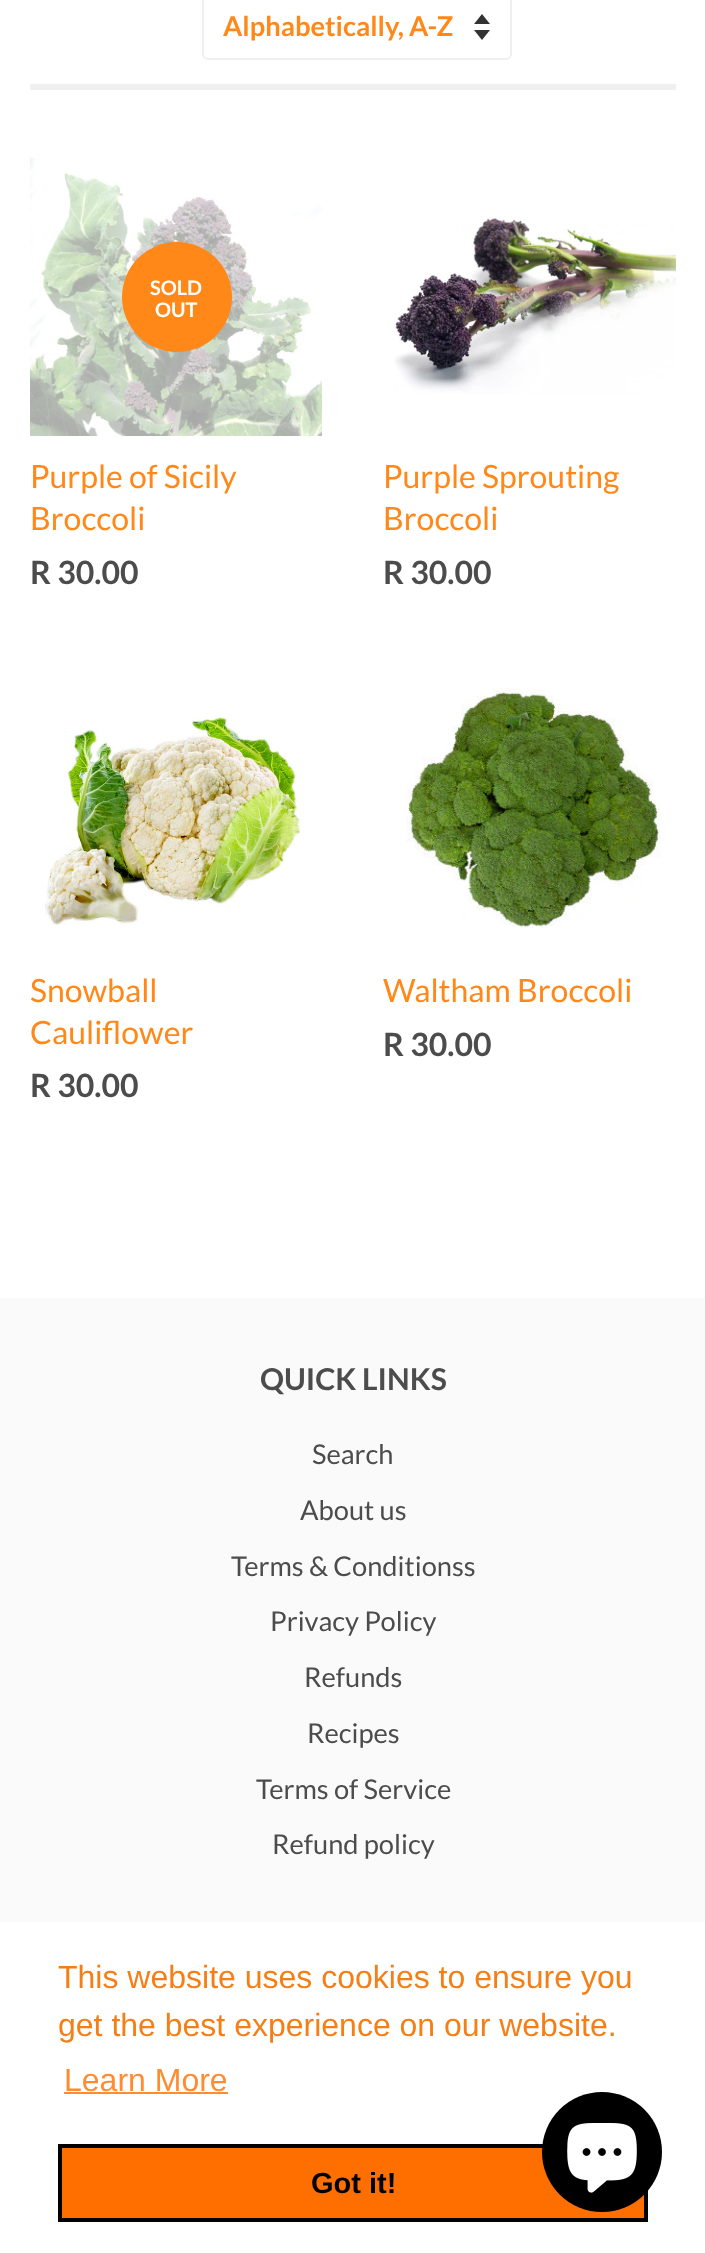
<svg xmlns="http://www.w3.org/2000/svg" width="705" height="2253">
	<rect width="100%" height="100%" fill="#FFFFFF" />
	<rect x="30" y="84" width="646" height="6" fill="#F0F0F0" />
	<path d="M474 30L482 40L490 30ZM482 14L474 24H490Z" fill="#333333" />
	<rect x="203" y="-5" width="308" height="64" rx="5" fill="none" stroke="#F0F0F0" stroke-width="2" />
	<text x="223" y="36" font-family="Lato" font-size="27.25" font-weight="700" fill="#FF8819">Alphabetically, A-Z</text>
	<image x="30" y="158" width="292" height="278" href="assets/img1.png" />
	<circle cx="177" cy="297" r="55" fill="#FF8819" />
	<g font-family="Lato" font-size="20" font-weight="700" fill="#FFFFFF">
		<text x="150" y="295">SOLD</text>
		<text x="155" y="317">OUT</text>
	</g>
	<g font-family="Lato" font-size="32" fill="#FF8819">
		<text x="30" y="488">Purple of Sicily</text>
		<text x="30" y="530">Broccoli</text>
	</g>
	<text x="30" y="584" font-family="Lato" font-size="32" font-weight="700" fill="#4C4C4C">R 30.00</text>
	<image x="394" y="217" width="282" height="178" href="assets/img2.png" />
	<g font-family="Lato" font-size="32" fill="#FF8819">
		<text x="383" y="488">Purple Sprouting</text>
		<text x="383" y="530">Broccoli</text>
	</g>
	<text x="383" y="584" font-family="Lato" font-size="32" font-weight="700" fill="#4C4C4C">R 30.00</text>
	<image x="45" y="717" width="255" height="209" href="assets/img3.png" />
	<g font-family="Lato" font-size="32" fill="#FF8819">
		<text x="30" y="1002">Snowball</text>
		<text x="30" y="1044">Cauliflower</text>
	</g>
	<text x="30" y="1097" font-family="Lato" font-size="32" font-weight="700" fill="#4C4C4C">R 30.00</text>
	<image x="407" y="688" width="254" height="239" href="assets/img4.png" />
	<text x="383" y="1002" font-family="Lato" font-size="32" fill="#FF8819">Waltham Broccoli</text>
	<text x="383" y="1056" font-family="Lato" font-size="32" font-weight="700" fill="#4C4C4C">R 30.00</text>
	<rect x="0" y="1298" width="705" height="624" fill="#FAFAFA" />
	<text x="260" y="1390" font-family="Lato" font-size="30" font-weight="700" fill="#4C4C4C">QUICK LINKS</text>
	<g font-family="Lato" font-size="27.25" fill="#4C4C4C">
		<text x="312" y="1464">Search</text>
		<text x="300" y="1520">About us</text>
		<text x="231" y="1576">Terms &amp; Conditionss</text>
		<text x="270" y="1631">Privacy Policy</text>
		<text x="304" y="1687">Refunds</text>
		<text x="307" y="1743">Recipes</text>
		<text x="256" y="1799">Terms of Service</text>
		<text x="272" y="1854">Refund policy</text>
	</g>
	<g font-family="Liberation Sans" font-size="32" fill="#F57F17">
		<text x="58" y="1988">This website uses cookies to ensure you</text>
		<text x="58" y="2036">get the best experience on our website.</text>
	</g>
	<text x="64" y="2091" font-family="Liberation Sans" font-size="32" fill="#FF8C33">Learn More</text>
	<rect x="64" y="2092" width="164" height="2" fill="#FF8C33" />
	<rect x="60" y="2146" width="586" height="74" fill="#FF6F00" stroke="#000000" stroke-width="4" />
	<text x="311" y="2193" font-family="Liberation Sans" font-size="29" font-weight="700" fill="#000000">Got it!</text>
	<circle cx="602" cy="2152" r="60" fill="#000000" />
	<image x="567" y="2123" width="70" height="70" href="assets/img5.png" />
</svg>
